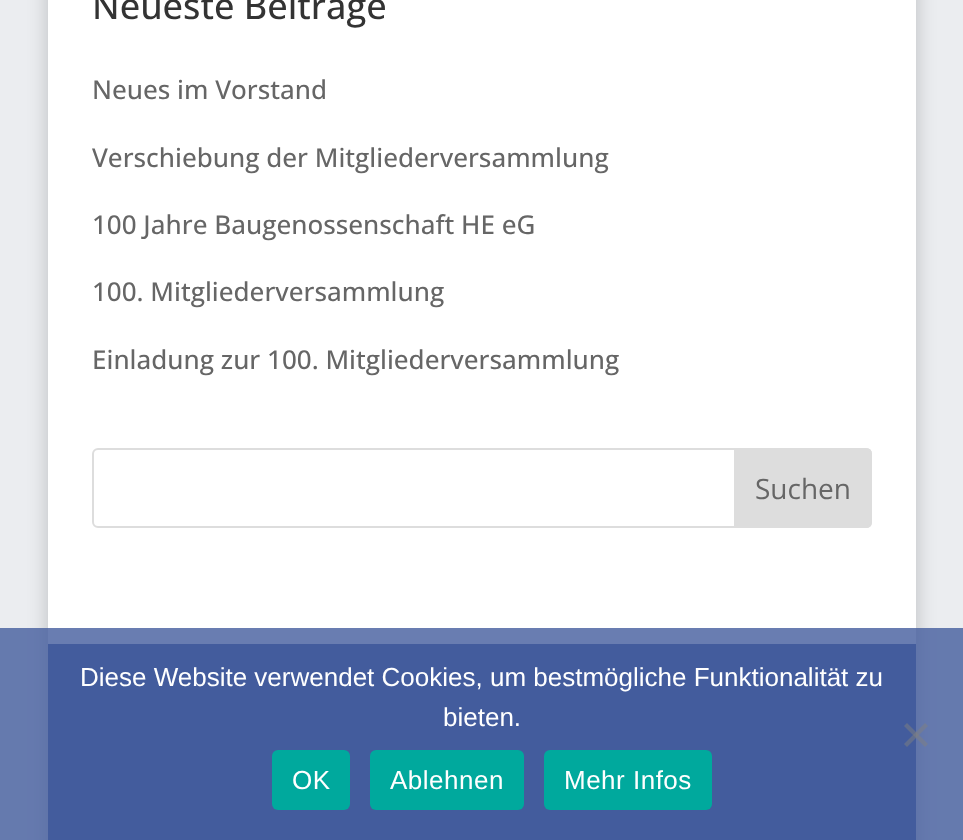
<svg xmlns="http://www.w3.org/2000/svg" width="963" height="840">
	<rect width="100%" height="100%" fill="#EBEDF0" />
	<rect x="48" y="-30" width="868" height="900" fill="#000000" fill-opacity="0.2" filter="blur(10px)" />
	<rect x="48" y="0" width="868" height="644" fill="#FFFFFF" />
	<text x="92" y="19" font-family="Open Sans" font-size="36" font-weight="500" fill="#333333">Neueste Beiträge</text>
	<g font-family="Open Sans" font-size="26" font-weight="500" fill="#666666">
		<text x="92" y="99">Neues im Vorstand</text>
		<text x="92" y="167">Verschiebung der Mitgliederversammlung</text>
		<text x="92" y="234">100 Jahre Baugenossenschaft HE eG</text>
		<text x="92" y="301">100. Mitgliederversammlung</text>
		<text x="92" y="369">Einladung zur 100. Mitgliederversammlung</text>
	</g>
	<rect x="93" y="449" width="778" height="78" rx="5" fill="none" stroke="#DDDDDD" stroke-width="2" />
	<path d="M735 449H866C869 449 871 451 871 454V522C871 525 869 527 866 527H735Z" fill="#DDDDDD" stroke="#DDDDDD" stroke-width="2" />
	<text x="755" y="499" font-family="Open Sans" font-size="28" fill="#666666">Suchen</text>
	<rect x="48" y="644" width="868" height="196" fill="#435D9D" />
	<rect x="0" y="628" width="963" height="212" fill="#435D9D" fill-opacity="0.8" />
	<g font-family="Liberation Sans" font-size="26" fill="#FFFFFF">
		<text x="80" y="686">Diese Website verwendet Cookies, um bestmögliche Funktionalität zu</text>
		<text x="443" y="726">bieten.</text>
	</g>
	<path d="M925 723L928 726L907 747L904 744Z" fill="#808080" fill-opacity="0.5" />
	<path d="M904 726L907 723L928 744L925 747Z" fill="#808080" fill-opacity="0.5" />
	<rect x="272" y="750" width="78" height="60" rx="6" fill="#00A99D" />
	<text x="292" y="789" font-family="Liberation Sans" font-size="26" letter-spacing="0.5" fill="#FFFFFF">OK</text>
	<rect x="370" y="750" width="154" height="60" rx="6" fill="#00A99D" />
	<text x="390" y="789" font-family="Liberation Sans" font-size="26" letter-spacing="0.5" fill="#FFFFFF">Ablehnen</text>
	<rect x="544" y="750" width="168" height="60" rx="6" fill="#00A99D" />
	<text x="564" y="789" font-family="Liberation Sans" font-size="26" letter-spacing="0.5" fill="#FFFFFF">Mehr Infos</text>
</svg>
